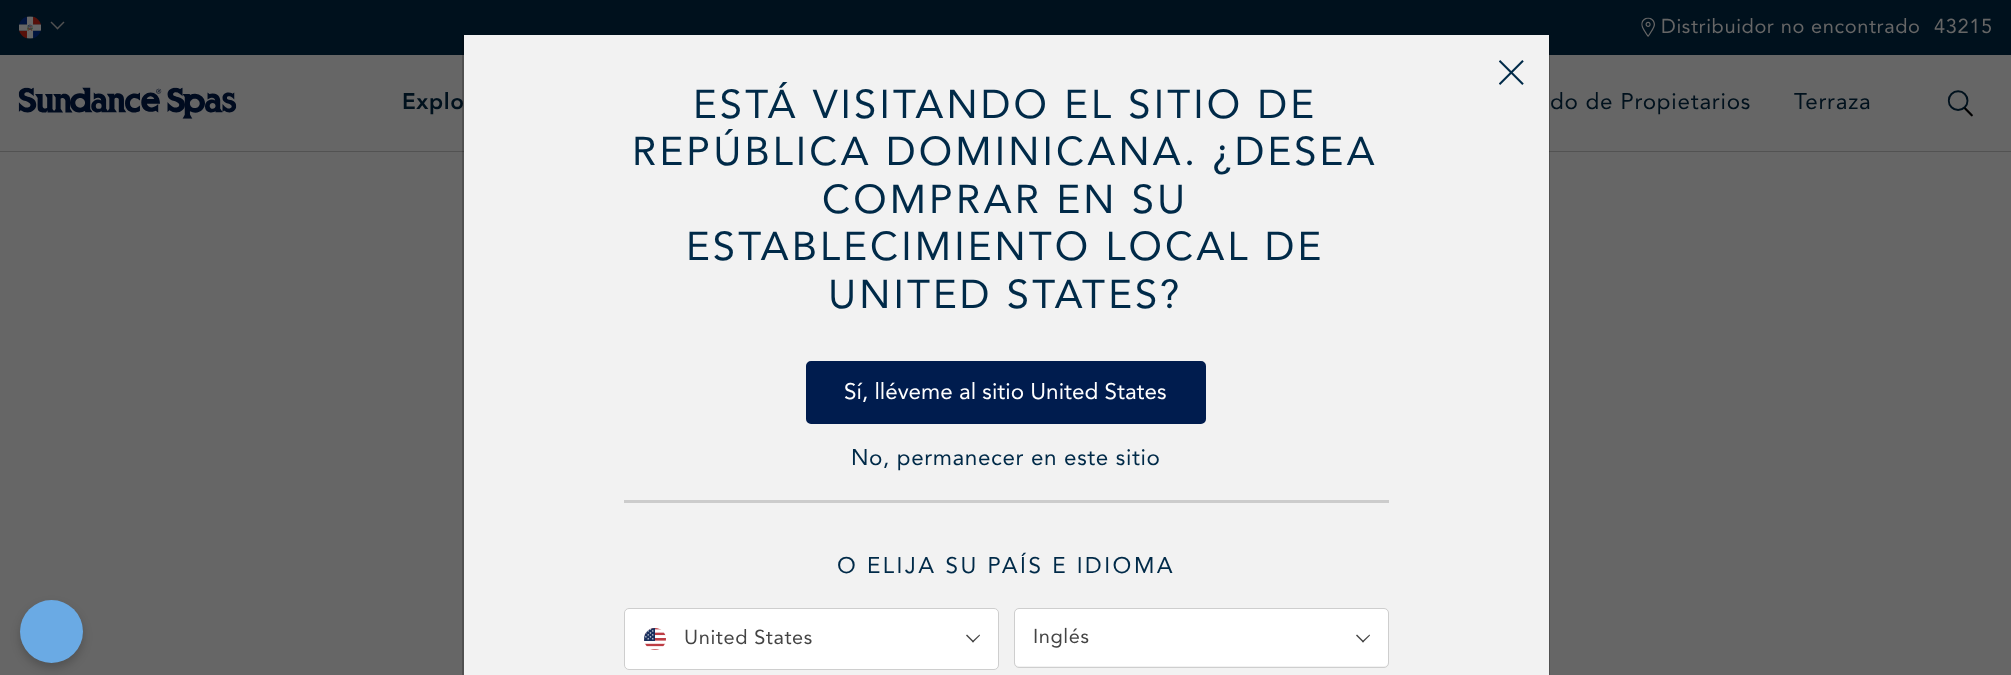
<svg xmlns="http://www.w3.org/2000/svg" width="2011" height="675">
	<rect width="100%" height="100%" fill="#666666" />
	<rect x="0" y="0" width="2011" height="55" fill="#00111D" />
	<image x="19" y="16" width="22" height="23" href="assets/img1.png" />
	<path d="M63.5 21.5L64.5 22.5L57.5 29.5L56.5 28.5Z" fill="#525252" />
	<path d="M51.5 21.5L58.5 28.5L57.5 29.5L50.5 22.5Z" fill="#525252" />
	<image x="1641" y="17" width="14" height="20" href="assets/img2.png" />
	<g font-family="Avenir" font-size="20" letter-spacing="0.6" fill="#666666">
		<text x="1661" y="33">Distribuidor no encontrado</text>
		<text x="1934" y="33">43215</text>
	</g>
	<rect x="0" y="151" width="2011" height="1" fill="#525252" />
	<image x="18" y="87" width="219" height="32" href="assets/img3.png" />
	<text x="402" y="109" font-family="Avenir" font-size="22.5" font-weight="900" letter-spacing="0.6" fill="#00111D">Explo</text>
	<g font-family="Avenir" font-size="22.5" letter-spacing="0.75" fill="#00111D">
		<text x="1550" y="109">do de Propietarios</text>
		<text x="1794" y="109">Terraza</text>
	</g>
	<image x="1947" y="90" width="26" height="27" href="assets/img4.png" />
	<rect x="20" y="605" width="63" height="63" rx="31.5" fill="#000000" fill-opacity="0.2" filter="blur(5px)" />
	<circle cx="51.5" cy="631.5" r="31.5" fill="#6AAAE4" />
	<rect x="464" y="35" width="1085" height="640" fill="#F2F2F2" />
	<path d="M1550 35V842L1549 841V35Z" fill="#000000" fill-opacity="0.2" />
	<path d="M462 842V35H464V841Z" fill="#000000" fill-opacity="0.2" />
	<image x="1499" y="60" width="25" height="25" href="assets/img5.png" />
	<g font-family="Avenir" font-size="40" letter-spacing="3.1" fill="#002A48">
		<text x="693" y="118">ESTÁ VISITANDO EL SITIO DE</text>
		<text x="632" y="165">REPÚBLICA DOMINICANA. ¿DESEA</text>
		<text x="822" y="213">COMPRAR EN SU</text>
		<text x="686" y="260">ESTABLECIMIENTO LOCAL DE</text>
		<text x="828" y="308">UNITED STATES?</text>
	</g>
	<rect x="807.5" y="362.5" width="397" height="60" rx="3.5" fill="#001C4E" stroke="#001C4E" stroke-width="3" />
	<text x="844" y="399" font-family="Avenir" font-size="22.5" fill="#FFFFFF">Sí, lléveme al sitio United States</text>
	<text x="851" y="465" font-family="Avenir" font-size="22.5" letter-spacing="0.6" fill="#002A48">No, permanecer en este sitio</text>
	<rect x="624" y="500" width="765" height="3" fill="#CCCCCC" />
	<text x="837" y="573" font-family="Avenir" font-size="22.5" letter-spacing="2.5" fill="#002A48">O ELIJA SU PAÍS E IDIOMA</text>
	<rect x="624.5" y="608.5" width="374" height="61" rx="4.5" fill="#FFFFFF" stroke="#CECECE" />
	<image x="644" y="628" width="22" height="22" href="assets/img6.png" />
	<text x="684" y="644" font-family="Avenir" font-size="20" letter-spacing="0.6" fill="#444444">United States</text>
	<path d="M979.5 634.5L980 635.5L973 642.5L972 641.5Z" fill="#444444" />
	<path d="M967 634.5L974 641.5L973 642.5L966 635.5Z" fill="#444444" />
	<rect x="1015" y="609" width="373" height="57" rx="4" fill="#FFFFFF" />
	<rect x="1014.5" y="608.5" width="374" height="59" rx="4.5" fill="none" stroke="#CECECE" />
	<text x="1033" y="643" font-family="Avenir" font-size="20" letter-spacing="0.6" fill="#444444">Inglés</text>
	<path d="M1369.5 634.5L1370 635.5L1363 642.5L1362 641.5Z" fill="#444444" />
	<path d="M1357 634.5L1364 641.5L1363 642.5L1356 635.5Z" fill="#444444" />
</svg>
